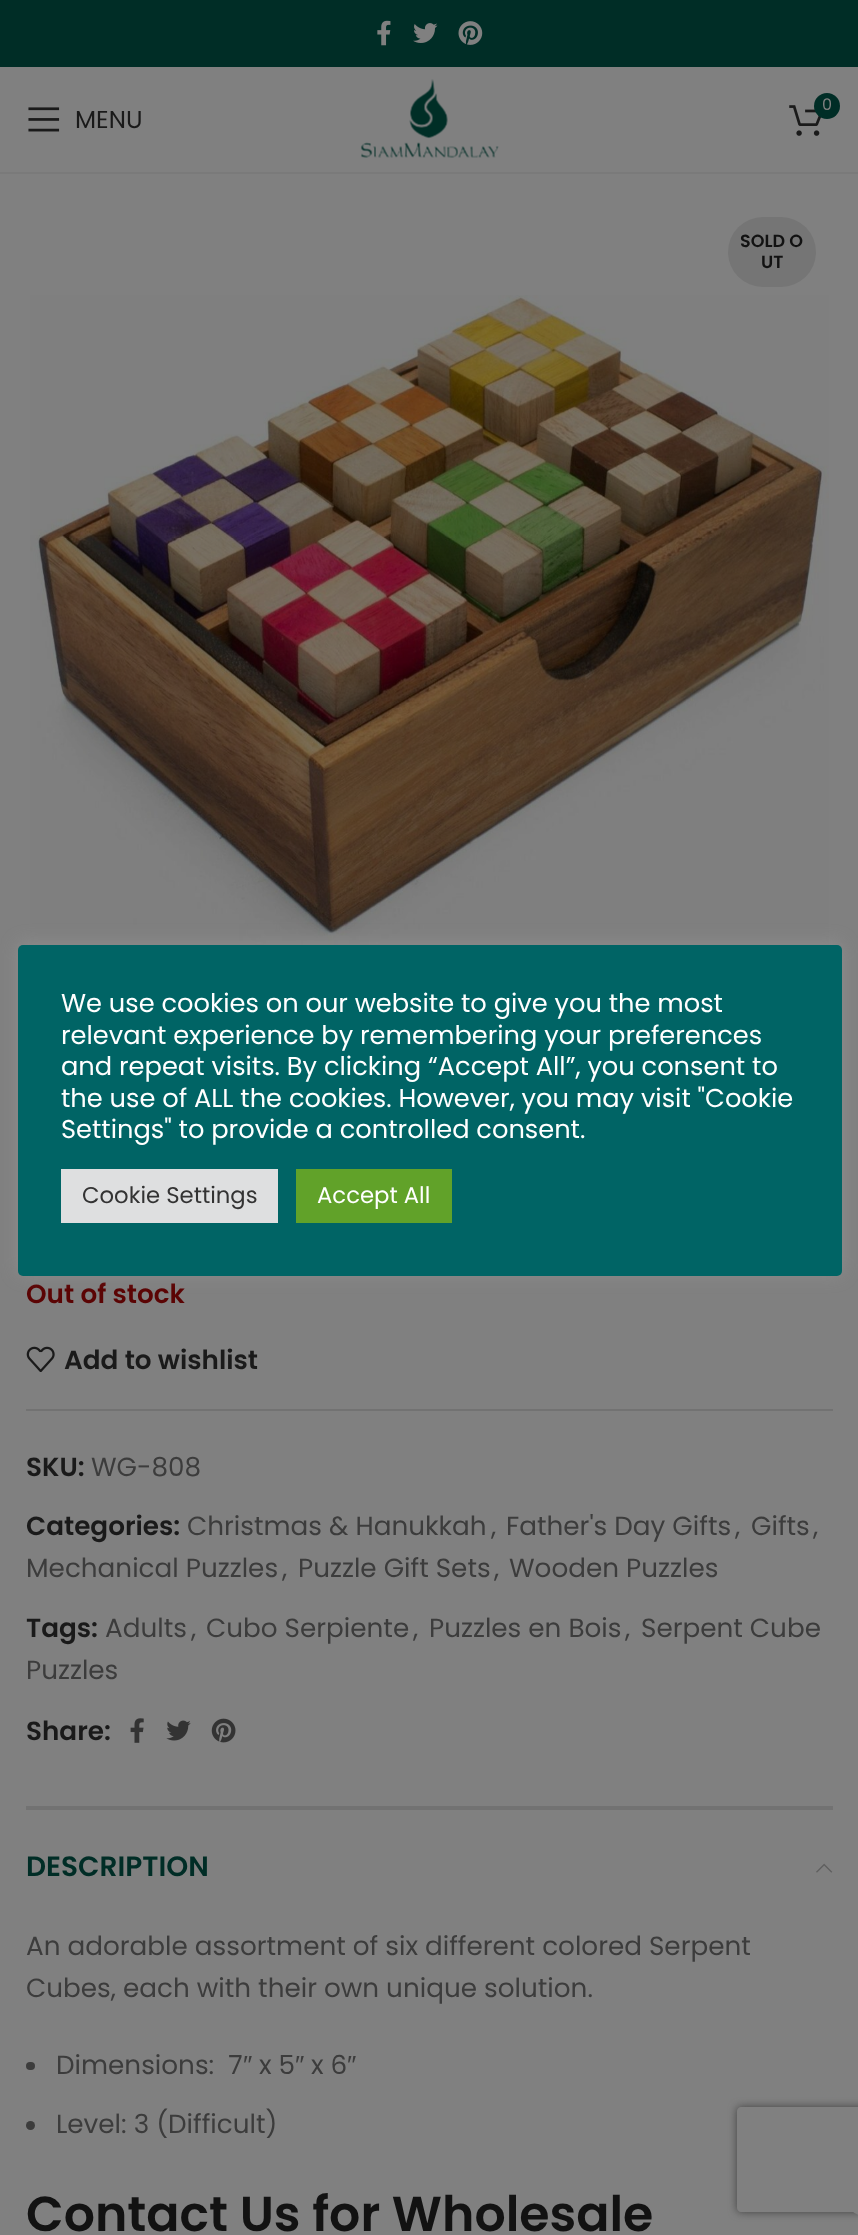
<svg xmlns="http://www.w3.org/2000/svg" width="858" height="2235">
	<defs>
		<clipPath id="clip1"><path d="M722 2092H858V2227H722ZM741 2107H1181C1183 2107 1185 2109 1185 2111V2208C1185 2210 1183 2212 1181 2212H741C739 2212 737 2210 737 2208V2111C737 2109 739 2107 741 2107Z" clip-rule="evenodd" /></clipPath>
	</defs>
	<rect width="100%" height="100%" fill="#808080" />
	<rect x="0" y="0" width="858" height="67" fill="#002D26" />
	<image x="377" y="20" width="14" height="26" href="assets/img1.png" />
	<image x="413" y="23" width="25" height="20" href="assets/img2.png" />
	<image x="458" y="21" width="25" height="24" href="assets/img3.png" />
	<rect x="0" y="172" width="858" height="2" fill="#7A7A7A" />
	<image x="360" y="79" width="139" height="79" href="assets/img4.png" />
	<image x="789" y="105" width="32" height="31" href="assets/img5.png" />
	<circle cx="827" cy="106" r="13" fill="#002D26" />
	<text x="822" y="110" font-family="Poppins" font-size="16" fill="#808080">0</text>
	<image x="28" y="107" width="32" height="25" href="assets/img6.png" />
	<text x="75" y="128" font-family="Poppins" font-size="24.5" fill="#1A1A1A">MENU</text>
	<rect x="728" y="217" width="88" height="70" rx="35" fill="#757575" />
	<g font-family="Poppins" font-size="17.5" font-weight="600" fill="#121212">
		<text x="740" y="247">SOLD O</text>
		<text x="761" y="268">UT</text>
	</g>
	<image x="30" y="295" width="799" height="650" href="assets/img7.png" />
	<text x="26" y="1303" font-family="Poppins" font-size="26.25" font-weight="600" fill="#5B0404">Out of stock</text>
	<image x="26" y="1346" width="29" height="26" href="assets/img8.png" />
	<text x="64" y="1369" font-family="Poppins" font-size="26.25" font-weight="600" fill="#1A1A1A">Add to wishlist</text>
	<rect x="26" y="1409" width="807" height="2" fill="#727272" />
	<text x="26" y="1476" font-family="Poppins" font-size="26.25" font-weight="600" fill="#1A1A1A">SKU:</text>
	<text x="91" y="1476" font-family="Poppins" font-size="26.25" fill="#3C3C3C">WG-808</text>
	<text x="26" y="1535" font-family="Poppins" font-size="26.25" font-weight="600" fill="#1A1A1A">Categories:</text>
	<g font-family="Poppins" font-size="26.25" fill="#3C3C3C">
		<text x="187" y="1535">Christmas &amp; Hanukkah</text>
		<text x="491" y="1535">,</text>
		<text x="506" y="1535">Father's Day Gifts</text>
		<text x="735" y="1535">,</text>
		<text x="751" y="1535">Gifts</text>
		<text x="813" y="1535">,</text>
		<text x="26" y="1577">Mechanical Puzzles</text>
		<text x="282" y="1577">,</text>
		<text x="298" y="1577">Puzzle Gift Sets</text>
		<text x="494" y="1577">,</text>
		<text x="509" y="1577">Wooden Puzzles</text>
	</g>
	<text x="26" y="1637" font-family="Poppins" font-size="26.25" font-weight="600" fill="#1A1A1A">Tags:</text>
	<g font-family="Poppins" font-size="26.25" fill="#3C3C3C">
		<text x="105" y="1637">Adults</text>
		<text x="191" y="1637">,</text>
		<text x="206" y="1637">Cubo Serpiente</text>
		<text x="413" y="1637">,</text>
		<text x="429" y="1637">Puzzles en Bois</text>
		<text x="625" y="1637">,</text>
		<text x="641" y="1637">Serpent Cube</text>
		<text x="26" y="1679">Puzzles</text>
	</g>
	<text x="26" y="1740" font-family="Poppins" font-size="26.25" font-weight="600" fill="#1A1A1A">Share:</text>
	<image x="130" y="1718" width="14" height="25" href="assets/img9.png" />
	<image x="166" y="1720" width="25" height="21" href="assets/img10.png" />
	<image x="211" y="1718" width="25" height="25" href="assets/img11.png" />
	<rect x="26" y="1806" width="807" height="4" fill="#727272" />
	<text x="26" y="1876" font-family="Poppins" font-size="28" font-weight="600" fill="#002D26">DESCRIPTION</text>
	<image x="816" y="1863" width="17" height="10" href="assets/img12.png" />
	<g font-family="Poppins" font-size="26.25" fill="#3C3C3C">
		<text x="26" y="1955">An adorable assortment of six different colored Serpent</text>
		<text x="26" y="1997">Cubes, each with their own unique solution.</text>
		<text x="56" y="2074" xml:space="preserve">Dimensions:  7</text>
	</g>
	<text x="243" y="2074" font-family="Liberation Sans" font-size="26.25" fill="#3C3C3C">″</text>
	<text x="259" y="2074" font-family="Poppins" font-size="26.25" fill="#3C3C3C">x 5</text>
	<text x="295" y="2074" font-family="Liberation Sans" font-size="26.25" fill="#3C3C3C">″</text>
	<text x="311" y="2074" font-family="Poppins" font-size="26.25" fill="#3C3C3C">x 6</text>
	<text x="347" y="2074" font-family="Liberation Sans" font-size="26.25" fill="#3C3C3C">″</text>
	<rect x="26" y="2062" width="9" height="8" rx="4" fill="#3C3C3C" />
	<circle cx="30.5" cy="2125.5" r="4.5" fill="#3C3C3C" />
	<text x="56" y="2133" font-family="Poppins" font-size="26.25" fill="#3C3C3C">Level: 3 (Difficult)</text>
	<text x="26" y="2231" font-family="Poppins" font-size="49" font-weight="600" fill="#121212">Contact Us for Wholesale</text>
	<rect x="18" y="943" width="824" height="331" rx="5" fill="#ACABAB" fill-opacity="0.3" filter="blur(9px)" />
	<rect x="18" y="945" width="824" height="331" rx="5" fill="#006465" />
	<g font-family="Poppins" font-size="25.7" fill="#FFFFFF">
		<text x="61" y="1012">We use cookies on our website to give you the most</text>
		<text x="61" y="1044">relevant experience by remembering your preferences</text>
		<text x="61" y="1075">and repeat visits. By clicking “Accept All”, you consent to</text>
		<text x="61" y="1107">the use of ALL the cookies. However, you may visit "Cookie</text>
		<text x="61" y="1138">Settings" to provide a controlled consent.</text>
	</g>
	<rect x="61" y="1169" width="217" height="54" fill="#DEDFE0" />
	<text x="82" y="1203" font-family="Poppins" font-size="22.75" fill="#333333">Cookie Settings</text>
	<rect x="296" y="1169" width="156" height="54" fill="#61A229" />
	<text x="317" y="1203" font-family="Poppins" font-size="22.75" fill="#FFFFFF">Accept All</text>
	<g clip-path="url(#clip1)">
		<rect x="737" y="2107" width="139" height="105" rx="4" fill="#404040" filter="blur(4.5px)" />
	</g>
	<rect x="838" y="2146" width="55" height="70" rx="35" fill="#808080" />
</svg>
